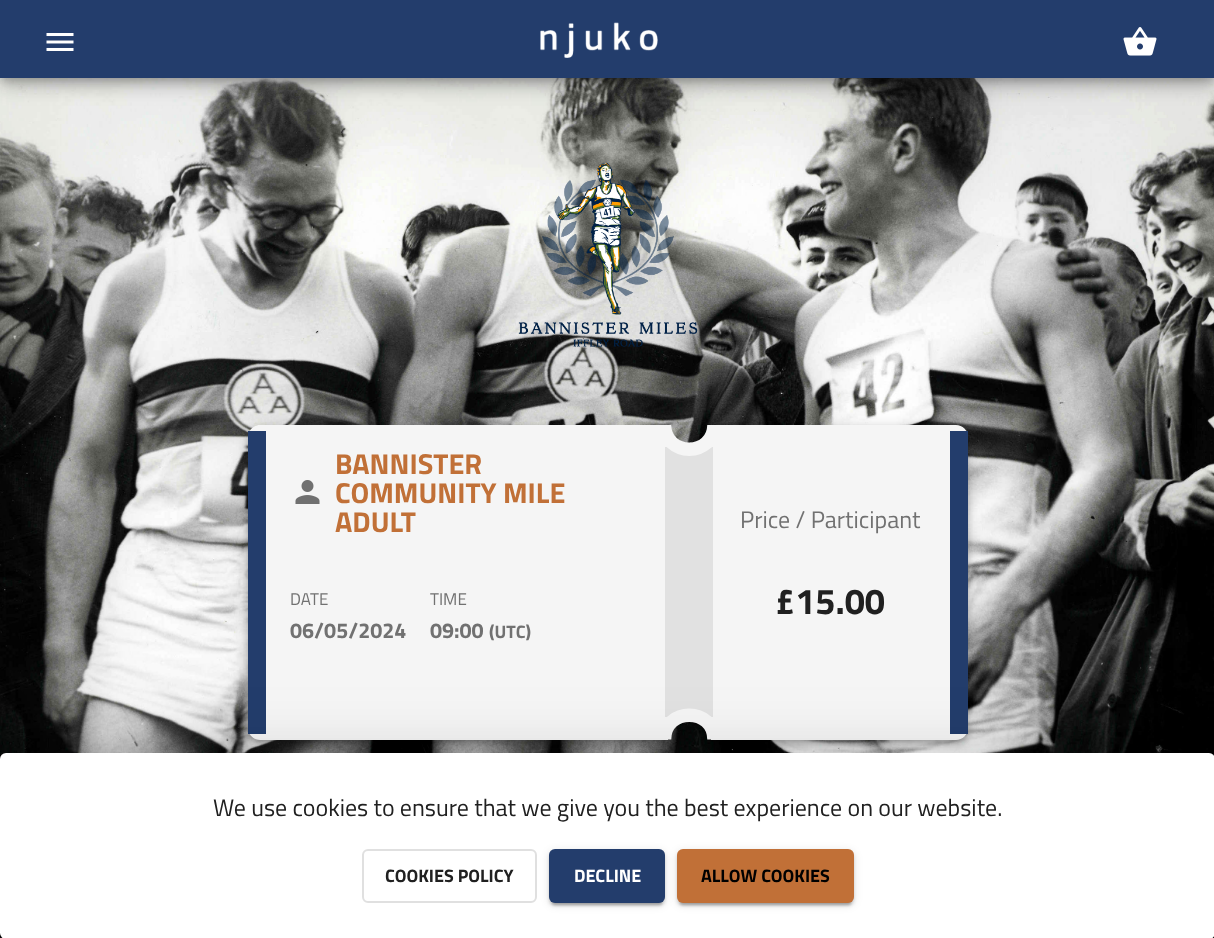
<svg xmlns="http://www.w3.org/2000/svg" width="1214" height="938">
	<defs>
		<clipPath id="clip1"><rect x="665" y="425" width="48" height="315" /></clipPath>
	</defs>
	<rect width="100%" height="100%" fill="#FFFFFF" />
	<image x="0" y="78" width="1214" height="860" href="assets/img1.png" />
	<rect x="0" y="2" width="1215" height="78" fill="#000000" fill-opacity="0.12" filter="blur(13.5px)" />
	<rect x="0" y="9" width="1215" height="78" fill="#000000" fill-opacity="0.14" filter="blur(7.5px)" />
	<rect x="2" y="6" width="1212" height="75" fill="#000000" fill-opacity="0.2" filter="blur(4px)" />
	<rect x="0" y="0" width="1214" height="78" fill="#233D6C" />
	<image x="46" y="33" width="28" height="18" href="assets/img2.png" />
	<image x="540" y="22" width="118" height="36" href="assets/img3.png" />
	<image x="1123" y="27" width="34" height="29" href="assets/img4.png" />
	<image x="500" y="162" width="198" height="185" href="assets/img5.png" />
	<rect x="248" y="426" width="420" height="315" rx="12" fill="#000000" fill-opacity="0.12" filter="blur(7.5px)" />
	<rect x="248" y="431" width="420" height="315" rx="12" fill="#000000" fill-opacity="0.14" filter="blur(4px)" />
	<rect x="249" y="429" width="417" height="312" rx="11" fill="#000000" fill-opacity="0.2" filter="blur(3px)" />
	<path d="M260 425H668V740H260C253.5 740 248 734.5 248 728V437C248 430.5 253.5 425 260 425Z" fill="#F5F5F5" />
	<rect x="248" y="431" width="18" height="303" fill="#233D6C" />
	<text x="335" y="474" font-family="Titillium Web" font-size="28.75" font-weight="700" fill="#C17037">BANNISTER</text>
	<image x="295" y="480" width="25" height="24" href="assets/img6.png" />
	<g font-family="Titillium Web" font-size="28.75" font-weight="700" fill="#C17037">
		<text x="335" y="503">COMMUNITY MILE</text>
		<text x="335" y="532">ADULT</text>
	</g>
	<rect x="711" y="426" width="257" height="315" rx="12" fill="#000000" fill-opacity="0.12" filter="blur(7.5px)" />
	<rect x="711" y="431" width="257" height="315" rx="12" fill="#000000" fill-opacity="0.14" filter="blur(4px)" />
	<rect x="713" y="429" width="253" height="312" rx="11" fill="#000000" fill-opacity="0.2" filter="blur(3px)" />
	<path d="M711 425H956C962.5 425 968 430.5 968 437V728C968 734.5 962.5 740 956 740H711Z" fill="#F5F5F5" />
	<rect x="665" y="447" width="48" height="270" fill="#E1E1E1" />
	<g clip-path="url(#clip1)">
		<path d="M714 424.5C714 457.5 664.5 457.5 664.5 424.5" fill="none" stroke="#F5F5F5" stroke-width="13.5" />
		<path d="M664.5 739.5C664.5 707 714 707 714 739.5" fill="none" stroke="#F5F5F5" stroke-width="13.5" />
	</g>
	<text x="290" y="605" font-family="Titillium Web" font-size="17" fill="#717171">DATE</text>
	<text x="290" y="638" font-family="Titillium Web" font-size="21.5" font-weight="700" fill="#717171">06/05/2024</text>
	<text x="430" y="605" font-family="Titillium Web" font-size="17" fill="#717171">TIME</text>
	<text x="430" y="638" font-family="Titillium Web" font-size="21.5" font-weight="700" fill="#717171">09:00</text>
	<text x="489" y="638" font-family="Titillium Web" font-size="18" font-weight="700" fill="#717171">(UTC)</text>
	<rect x="950" y="431" width="18" height="303" fill="#233D6C" />
	<text x="740" y="528" font-family="Titillium Web" font-size="24" fill="#717171">Price / Participant</text>
	<text x="775" y="614" font-family="Titillium Web" font-size="36" font-weight="700" fill="#202020">£15.00</text>
	<rect x="-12" y="755" width="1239" height="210" rx="18" fill="#000000" fill-opacity="0.12" filter="blur(34.5px)" />
	<rect x="-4" y="785" width="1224" height="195" rx="11" fill="#000000" fill-opacity="0.14" filter="blur(28.5px)" />
	<rect x="0" y="753" width="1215" height="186" rx="6" fill="#FFFFFF" />
	<text x="213" y="816" font-family="Titillium Web" font-size="24" fill="#202020">We use cookies to ensure that we give you the best experience on our website.</text>
	<rect x="363" y="850" width="173" height="52" rx="5" fill="none" stroke="#E0E0E0" stroke-width="2" />
	<text x="385" y="882" font-family="Titillium Web" font-size="18" font-weight="700" fill="#202020">COOKIES POLICY</text>
	<rect x="549" y="851" width="116" height="54" rx="6" fill="#000000" fill-opacity="0.12" filter="blur(4px)" />
	<rect x="549" y="852" width="116" height="54" rx="6" fill="#000000" fill-opacity="0.14" filter="blur(1.5px)" />
	<rect x="552" y="857" width="110" height="48" rx="3" fill="#000000" fill-opacity="0.2" filter="blur(1px)" />
	<rect x="549" y="849" width="116" height="54" rx="6" fill="#233D6C" />
	<text x="574" y="882" font-family="Titillium Web" font-size="18" font-weight="700" fill="#FFFFFF">DECLINE</text>
	<rect x="677" y="851" width="177" height="54" rx="6" fill="#000000" fill-opacity="0.12" filter="blur(4px)" />
	<rect x="677" y="852" width="177" height="54" rx="6" fill="#000000" fill-opacity="0.14" filter="blur(1.5px)" />
	<rect x="680" y="857" width="171" height="48" rx="3" fill="#000000" fill-opacity="0.2" filter="blur(1px)" />
	<rect x="677" y="849" width="177" height="54" rx="6" fill="#C17037" />
	<text x="701" y="882" font-family="Titillium Web" font-size="18" font-weight="700" fill="#000000">ALLOW COOKIES</text>
</svg>
